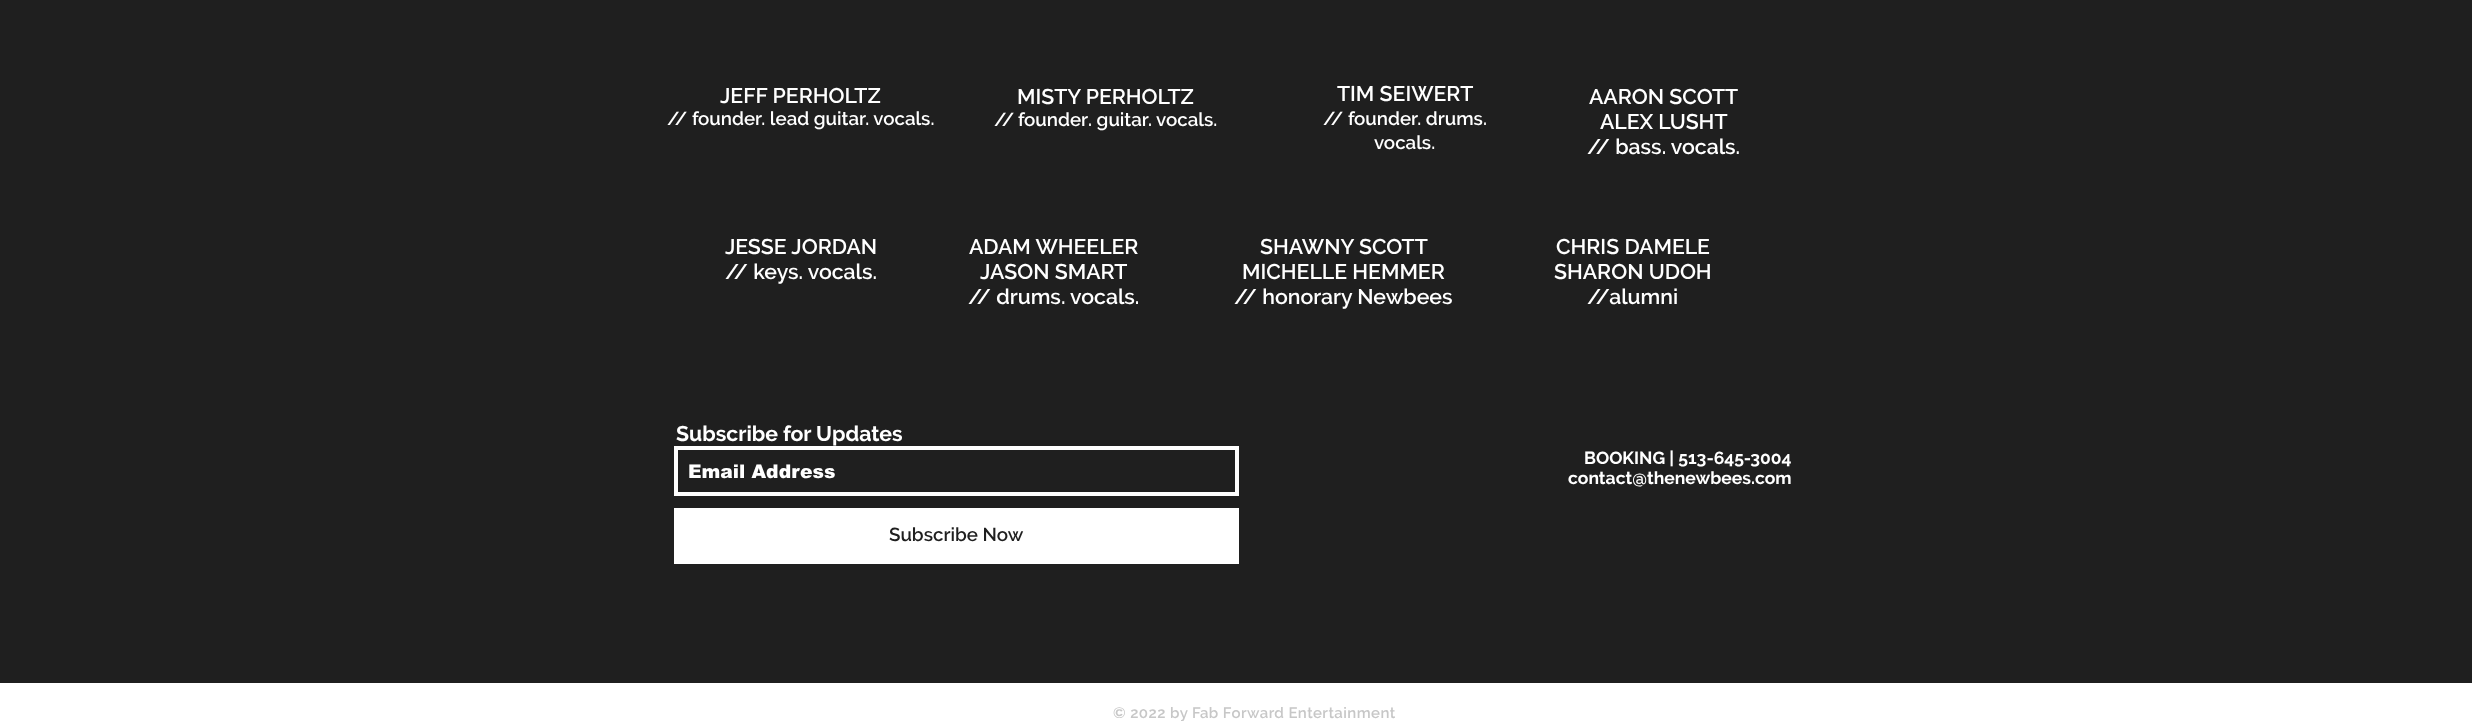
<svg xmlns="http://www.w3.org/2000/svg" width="2472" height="721">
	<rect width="100%" height="100%" fill="#FFFFFF" />
	<rect x="0" y="0" width="2472" height="683" fill="#1F1F1F" />
	<text x="720" y="103" font-family="Raleway" font-size="21.25" font-weight="600" fill="#FFFFFF">JEFF PERHOLTZ</text>
	<text x="667" y="125" font-family="Raleway" font-size="18.75" font-weight="600" fill="#FFFFFF">// founder. lead guitar. vocals.</text>
	<text x="1017" y="104" font-family="Raleway" font-size="21.25" font-weight="600" fill="#FFFFFF">MISTY PERHOLTZ</text>
	<g font-family="Raleway" font-size="18.75" font-weight="600" fill="#FFFFFF">
		<text x="994" y="126" word-spacing="-1">// founder</text>
		<text x="1088" y="126">. guitar. vocals.</text>
	</g>
	<text x="1337" y="101" font-family="Raleway" font-size="21.25" font-weight="600" fill="#FFFFFF">TIM SEIWERT</text>
	<g font-family="Raleway" font-size="18.75" font-weight="600" fill="#FFFFFF">
		<text x="1323" y="125">// founder. drums.</text>
		<text x="1374" y="149">vocals.</text>
	</g>
	<g font-family="Raleway" font-size="21.25" font-weight="600" fill="#FFFFFF">
		<text x="1589" y="104">AARON SCOTT</text>
		<text x="1600" y="129">ALEX LUSHT</text>
		<text x="1587" y="154">// bass. vocals.</text>
		<text x="725" y="254">JESSE JORDAN</text>
		<text x="725" y="279">// keys. vocals.</text>
		<text x="969" y="254">ADAM WHEELER</text>
		<text x="980" y="279">JASON SMART</text>
		<text x="968" y="304">// drums. vocals.</text>
		<text x="1260" y="254">SHAWNY SCOTT</text>
		<text x="1242" y="279">MICHELLE HEMMER</text>
		<text x="1234" y="304">// honorary Newbees</text>
		<text x="1556" y="254">CHRIS DAMELE</text>
		<text x="1554" y="279">SHARON UDOH</text>
		<text x="1587" y="304">//alumni</text>
	</g>
	<text x="676" y="441" font-family="Raleway" font-size="21.25" font-weight="700" fill="#FFFFFF">Subscribe for Updates</text>
	<rect x="676" y="448" width="561" height="46" fill="none" stroke="#FFFFFF" stroke-width="4" />
	<text x="688" y="478" font-family="arial" font-size="18.75" font-weight="900" fill="#FFFFFF">Email Address</text>
	<rect x="674" y="508" width="565" height="56" fill="#FFFFFF" />
	<text x="889" y="541" font-family="Raleway" font-size="18.75" font-weight="600" fill="#1F1F1F">Subscribe Now</text>
	<g font-family="Raleway" font-size="17.5" font-weight="700" fill="#FFFFFF">
		<text x="1584" y="464">BOOKING | 513-645-3004</text>
		<text x="1568" y="484">contact@thenewbees.com</text>
	</g>
	<text x="1113" y="718" font-family="Raleway" font-size="15" font-weight="600" letter-spacing="0.45" fill="#C7C7C7">© 2022 by Fab Forward Entertainment</text>
</svg>
